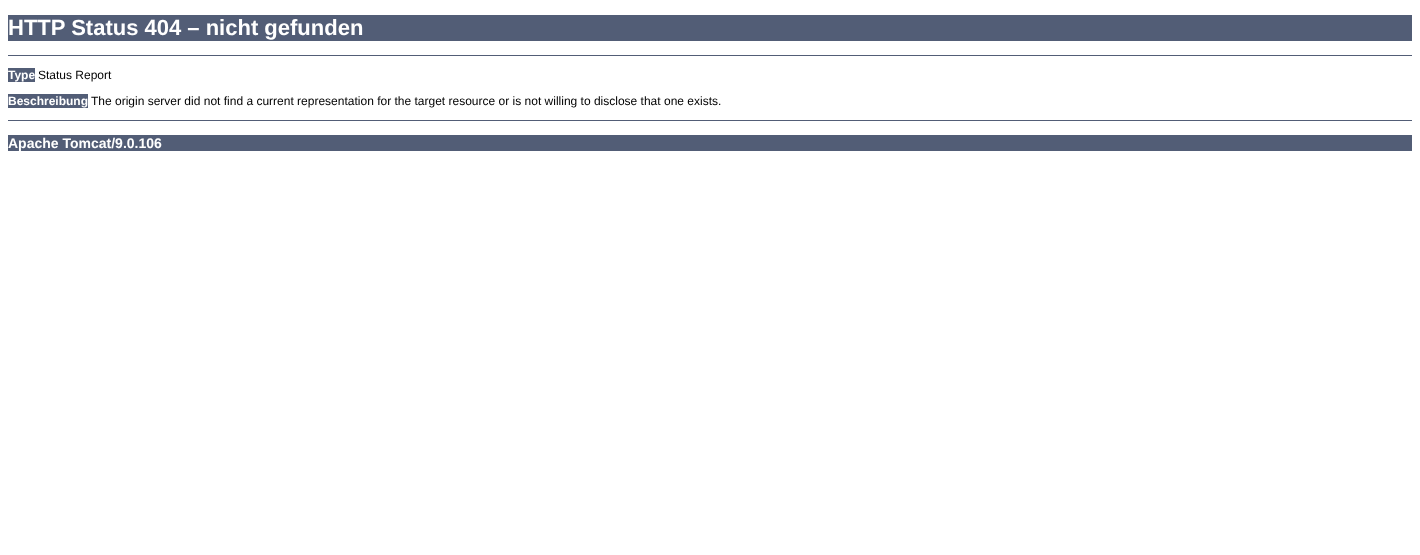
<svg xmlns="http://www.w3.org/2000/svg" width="1420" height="555">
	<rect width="100%" height="100%" fill="#FFFFFF" />
	<rect x="8" y="15" width="1404" height="26" fill="#525D76" />
	<text x="8" y="35" font-family="Liberation Sans" font-size="22" font-weight="700" fill="#FFFFFF">HTTP Status 404 – nicht gefunden</text>
	<rect x="8" y="55" width="1404" height="1" fill="#525D76" />
	<rect x="8" y="68" width="27" height="14" fill="#525D76" />
	<text x="8" y="79" font-family="Liberation Sans" font-size="12" font-weight="700" fill="#FFFFFF">Type</text>
	<text x="38" y="79" font-family="Liberation Sans" font-size="12" fill="#000000">Status Report</text>
	<rect x="8" y="94" width="80" height="14" fill="#525D76" />
	<text x="8" y="105" font-family="Liberation Sans" font-size="12" font-weight="700" fill="#FFFFFF">Beschreibung</text>
	<text x="91" y="105" font-family="Liberation Sans" font-size="12" fill="#000000">The origin server did not find a current representation for the target resource or is not willing to disclose that one exists.</text>
	<rect x="8" y="120" width="1404" height="1" fill="#525D76" />
	<rect x="8" y="135" width="1404" height="16" fill="#525D76" />
	<text x="8" y="148" font-family="Liberation Sans" font-size="14" font-weight="700" fill="#FFFFFF">Apache Tomcat/9.0.106</text>
</svg>
